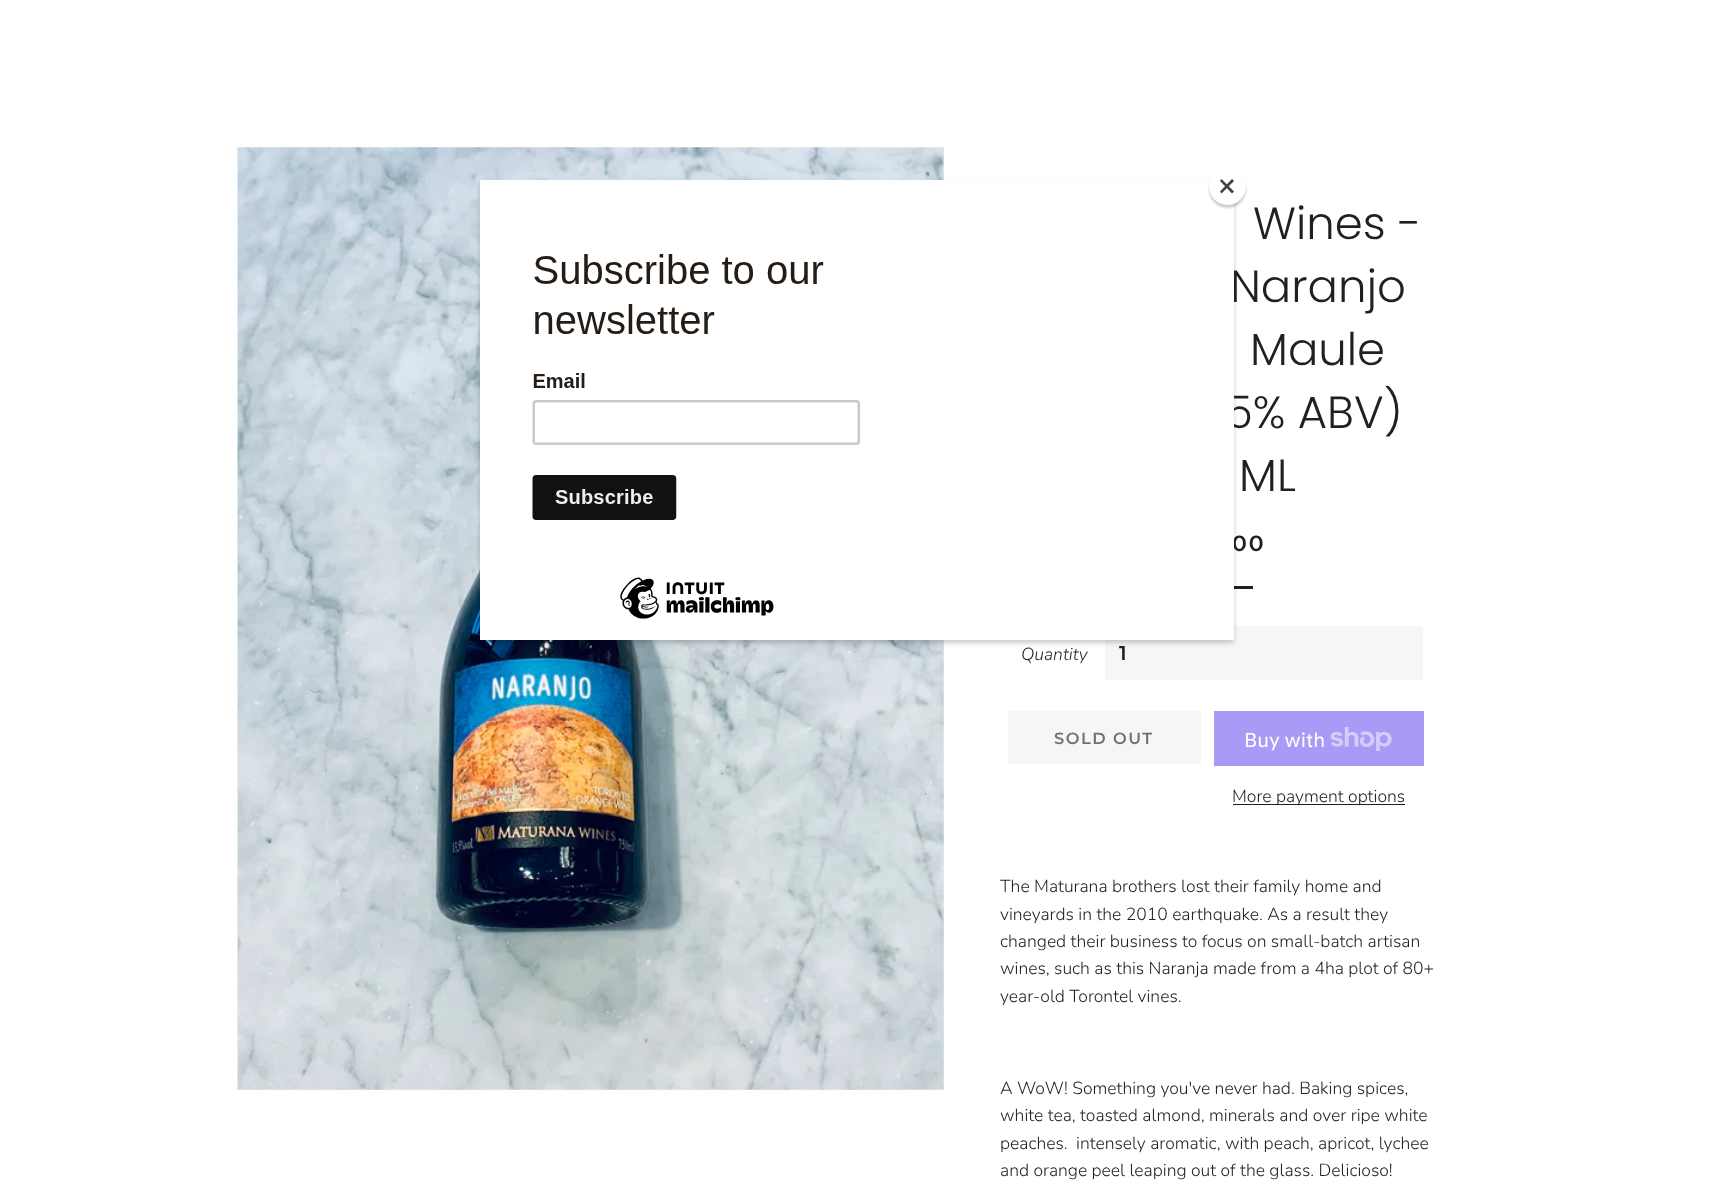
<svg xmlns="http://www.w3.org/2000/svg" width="1712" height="1200">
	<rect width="100%" height="100%" fill="#FFFFFF" />
	<rect x="238" y="148" width="706" height="942" fill="#F6F6F6" />
	<image x="237" y="147" width="707" height="943" href="assets/img2.png" />
	<rect x="1234" y="586" width="19" height="3" fill="#1F2021" />
	<rect x="1105" y="626" width="318" height="54" fill="#F6F6F6" />
	<rect x="480" y="183" width="754" height="460" fill="#000000" fill-opacity="0.2" filter="blur(2.5px)" />
	<g font-family="Poppins" font-size="45" font-weight="300" fill="#1F2021">
		<text x="1230" y="302">Naranjo</text>
		<text x="1225" y="428">5% ABV)</text>
	</g>
	<text x="1232" y="551" font-family="Montserrat" font-size="22" font-weight="600" letter-spacing="2" fill="#1F2021">00</text>
	<image x="480" y="180" width="754" height="460" href="assets/img1.png" />
	<rect x="1209" y="170" width="37" height="38" rx="18.5" fill="#000000" fill-opacity="0.2" filter="blur(1px)" />
	<circle cx="1227.5" cy="186.5" r="18.5" fill="#FFFFFF" />
	<path d="M1232 179L1234 181L1221.5 193.5L1220 191.5Z" fill="#414141" />
	<path d="M1220 181L1221.5 179L1234 191.5L1232 193.5Z" fill="#414141" />
	<g font-family="Poppins" font-size="45" font-weight="300" fill="#1F2021">
		<text x="1253" y="239">Wines -</text>
		<text x="1250" y="365">Maule</text>
		<text x="1239" y="491">ML</text>
	</g>
	<text x="1021" y="660" font-family="Nunito" font-size="17.5" font-weight="300" font-style="italic" fill="#1F2021">Quantity</text>
	<text x="1119" y="660" font-family="Montserrat" font-size="20" font-weight="600" letter-spacing="2" fill="#1F2021">1</text>
	<rect x="1008" y="711" width="193" height="53" fill="#F6F6F6" />
	<text x="1054" y="744" font-family="Montserrat" font-size="16.25" font-weight="600" letter-spacing="1.5" fill="#717171">SOLD OUT</text>
	<rect x="1214" y="711" width="210" height="55" fill="#AA99F5" />
	<text x="1244" y="747" font-family="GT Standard" font-size="20" fill="#FFFFFF">Buy with</text>
	<image x="1330" y="726" width="62" height="25" href="assets/img3.png" />
	<rect x="1233" y="804" width="172" height="1" fill="#1F2021" />
	<g font-family="Nunito" font-size="17.5" font-weight="300" fill="#1F2021">
		<text x="1232" y="802">More payment options</text>
		<text x="1000" y="892">The Maturana brothers lost their family home and</text>
		<text x="1000" y="920">vineyards in the 2010 earthquake. As a result they</text>
		<text x="1000" y="947">changed their business to focus on small-batch artisan</text>
		<text x="1000" y="974">wines, such as this Naranja made from a 4ha plot of 80+</text>
		<text x="1000" y="1002">year-old Torontel vines.</text>
		<text x="1000" y="1094">A WoW! Something you've never had. Baking spices,</text>
		<text x="1000" y="1121">white tea, toasted almond, minerals and over ripe white</text>
		<text x="1000" y="1149">peaches.</text>
		<text x="1076" y="1149">intensely aromatic, with peach, apricot, lychee</text>
		<text x="1000" y="1176">and orange peel leaping out of the glass. Delicioso!</text>
	</g>
</svg>
